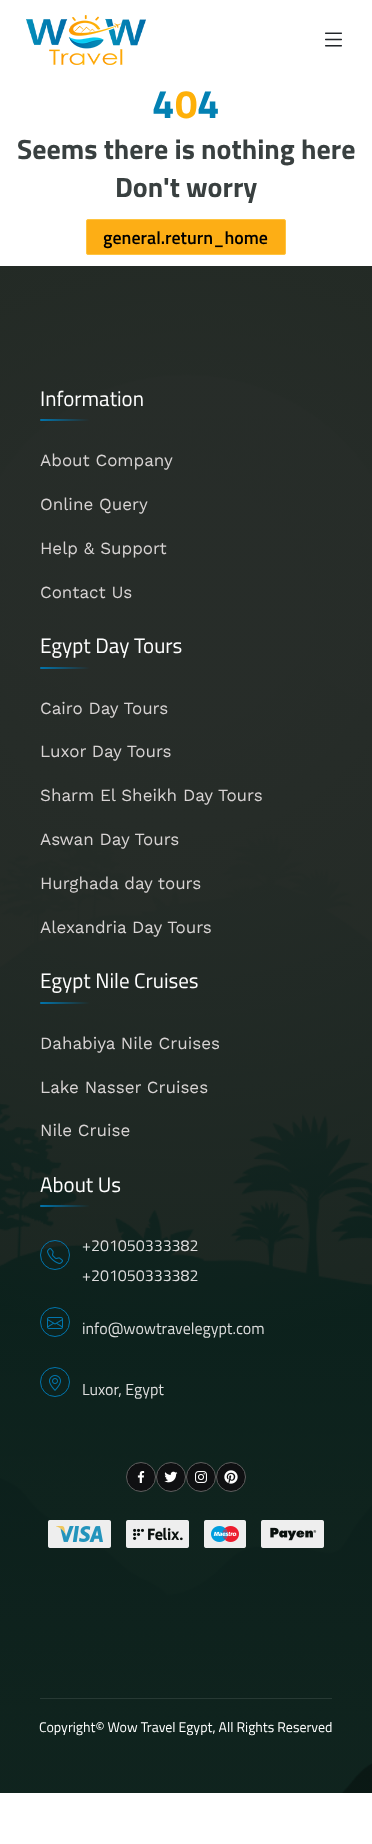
<svg xmlns="http://www.w3.org/2000/svg" width="372" height="1844">
	<defs>
		<linearGradient id="g1" gradientUnits="userSpaceOnUse" x1="40" y1="420" x2="90" y2="420"><stop offset="0" stop-color="#0175AD" /><stop offset="1" stop-color="#272C28" /></linearGradient>
		<linearGradient id="g2" gradientUnits="userSpaceOnUse" x1="40" y1="668" x2="90" y2="668"><stop offset="0" stop-color="#0175AD" /><stop offset="1" stop-color="#272C29" /></linearGradient>
		<linearGradient id="g3" gradientUnits="userSpaceOnUse" x1="40" y1="1003" x2="90" y2="1003"><stop offset="0" stop-color="#0175AD" /><stop offset="1" stop-color="#212A25" /></linearGradient>
	</defs>
	<rect width="100%" height="100%" fill="#FFFFFF" />
	<image x="26" y="15" width="120" height="50" href="assets/img1.png" />
	<image x="325" y="32" width="17" height="15" href="assets/img2.png" />
	<text x="152" y="118" font-family="Titillium Web" font-size="40" font-weight="700" fill="#0381B3">4</text>
	<text x="175" y="118" font-family="Titillium Web" font-size="40" font-weight="700" fill="#FEB009">0</text>
	<text x="197" y="118" font-family="Titillium Web" font-size="40" font-weight="700" fill="#0381B3">4</text>
	<g font-family="Titillium Web" font-size="28" font-weight="700" fill="#394040">
		<text x="17" y="159">Seems there is nothing here</text>
		<text x="115" y="197">Don't worry</text>
	</g>
	<rect x="86.5" y="219.5" width="199" height="35" rx="1.5" fill="#FDAE15" stroke="#FFC43F" />
	<text x="103" y="244" font-family="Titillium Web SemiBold" font-size="18" font-weight="600" fill="#000000">general.return_home</text>
	<image x="0" y="266" width="372" height="1527" href="assets/img3.png" />
	<text x="40" y="406" font-family="Titillium Web" font-size="21" fill="#FFFFFF">Information</text>
	<rect x="40" y="419" width="50" height="2" rx="1" fill="url(#g1)" />
	<g font-family="Work Sans" font-size="17" fill="#D7D3D3">
		<text x="40" y="466">About Company</text>
		<text x="40" y="510">Online Query</text>
		<text x="40" y="554">Help &amp; Support</text>
		<text x="40" y="598">Contact Us</text>
	</g>
	<text x="40" y="653" font-family="Titillium Web" font-size="21" fill="#FFFFFF">Egypt Day Tours</text>
	<rect x="40" y="667" width="50" height="2" rx="1" fill="url(#g2)" />
	<g font-family="Work Sans" font-size="17" fill="#D7D3D3">
		<text x="40" y="714">Cairo Day Tours</text>
		<text x="40" y="757">Luxor Day Tours</text>
		<text x="40" y="801">Sharm El Sheikh Day Tours</text>
		<text x="40" y="845">Aswan Day Tours</text>
		<text x="40" y="889">Hurghada day tours</text>
		<text x="40" y="933">Alexandria Day Tours</text>
	</g>
	<text x="40" y="988" font-family="Titillium Web" font-size="21" fill="#FFFFFF">Egypt Nile Cruises</text>
	<rect x="40" y="1002" width="50" height="2" rx="1" fill="url(#g3)" />
	<g font-family="Work Sans" font-size="17" fill="#D7D3D3">
		<text x="40" y="1049">Dahabiya Nile Cruises</text>
		<text x="40" y="1093">Lake Nasser Cruises</text>
		<text x="40" y="1136">Nile Cruise</text>
	</g>
	<text x="40" y="1192" font-family="Titillium Web" font-size="21" fill="#FFFFFF">About Us</text>
	<circle cx="55" cy="1255" r="14.5" fill="none" stroke="#0175AD" />
	<image x="47" y="1248" width="16" height="16" href="assets/img4.png" />
	<g font-family="Titillium Web" font-size="16" fill="#DDDDDD">
		<text x="82" y="1251">+201050333382</text>
		<text x="82" y="1281">+201050333382</text>
	</g>
	<circle cx="55" cy="1322" r="14.5" fill="none" stroke="#0175AD" />
	<image x="47" y="1317" width="16" height="12" href="assets/img5.png" />
	<text x="82" y="1334" font-family="Titillium Web" font-size="16" fill="#DDDDDD">info@wowtravelegypt.com</text>
	<circle cx="55" cy="1382" r="14.5" fill="none" stroke="#0175AD" />
	<image x="49" y="1375" width="12" height="16" href="assets/img6.png" />
	<text x="82" y="1395" font-family="Titillium Web" font-size="16" fill="#DDDDDD">Luxor, Egypt</text>
	<circle cx="141" cy="1477" r="14.5" fill="#0F1012" stroke="#5E5E5E" />
	<image x="137" y="1471" width="8" height="12" href="assets/img7.png" />
	<circle cx="171" cy="1477" r="14.5" fill="#0F1012" stroke="#5E5E5E" />
	<image x="164" y="1471" width="14" height="12" href="assets/img8.png" />
	<circle cx="201" cy="1477" r="14.5" fill="#0F1012" stroke="#5E5E5E" />
	<image x="195" y="1471" width="12" height="12" href="assets/img9.png" />
	<circle cx="231" cy="1477" r="14.5" fill="#0F1012" stroke="#5E5E5E" />
	<image x="224" y="1470" width="14" height="14" href="assets/img10.png" />
	<image x="48" y="1520" width="63" height="28" href="assets/img11.png" />
	<image x="126" y="1520" width="63" height="28" href="assets/img12.png" />
	<image x="204" y="1520" width="42" height="28" href="assets/img13.png" />
	<image x="261" y="1520" width="63" height="28" href="assets/img14.png" />
	<rect x="40" y="1698" width="292" height="1" fill="#273934" />
	<text x="39" y="1732" font-family="Titillium Web" font-size="14" fill="#FFFFFF">Copyright© Wow Travel Egypt, All Rights Reserved</text>
</svg>
